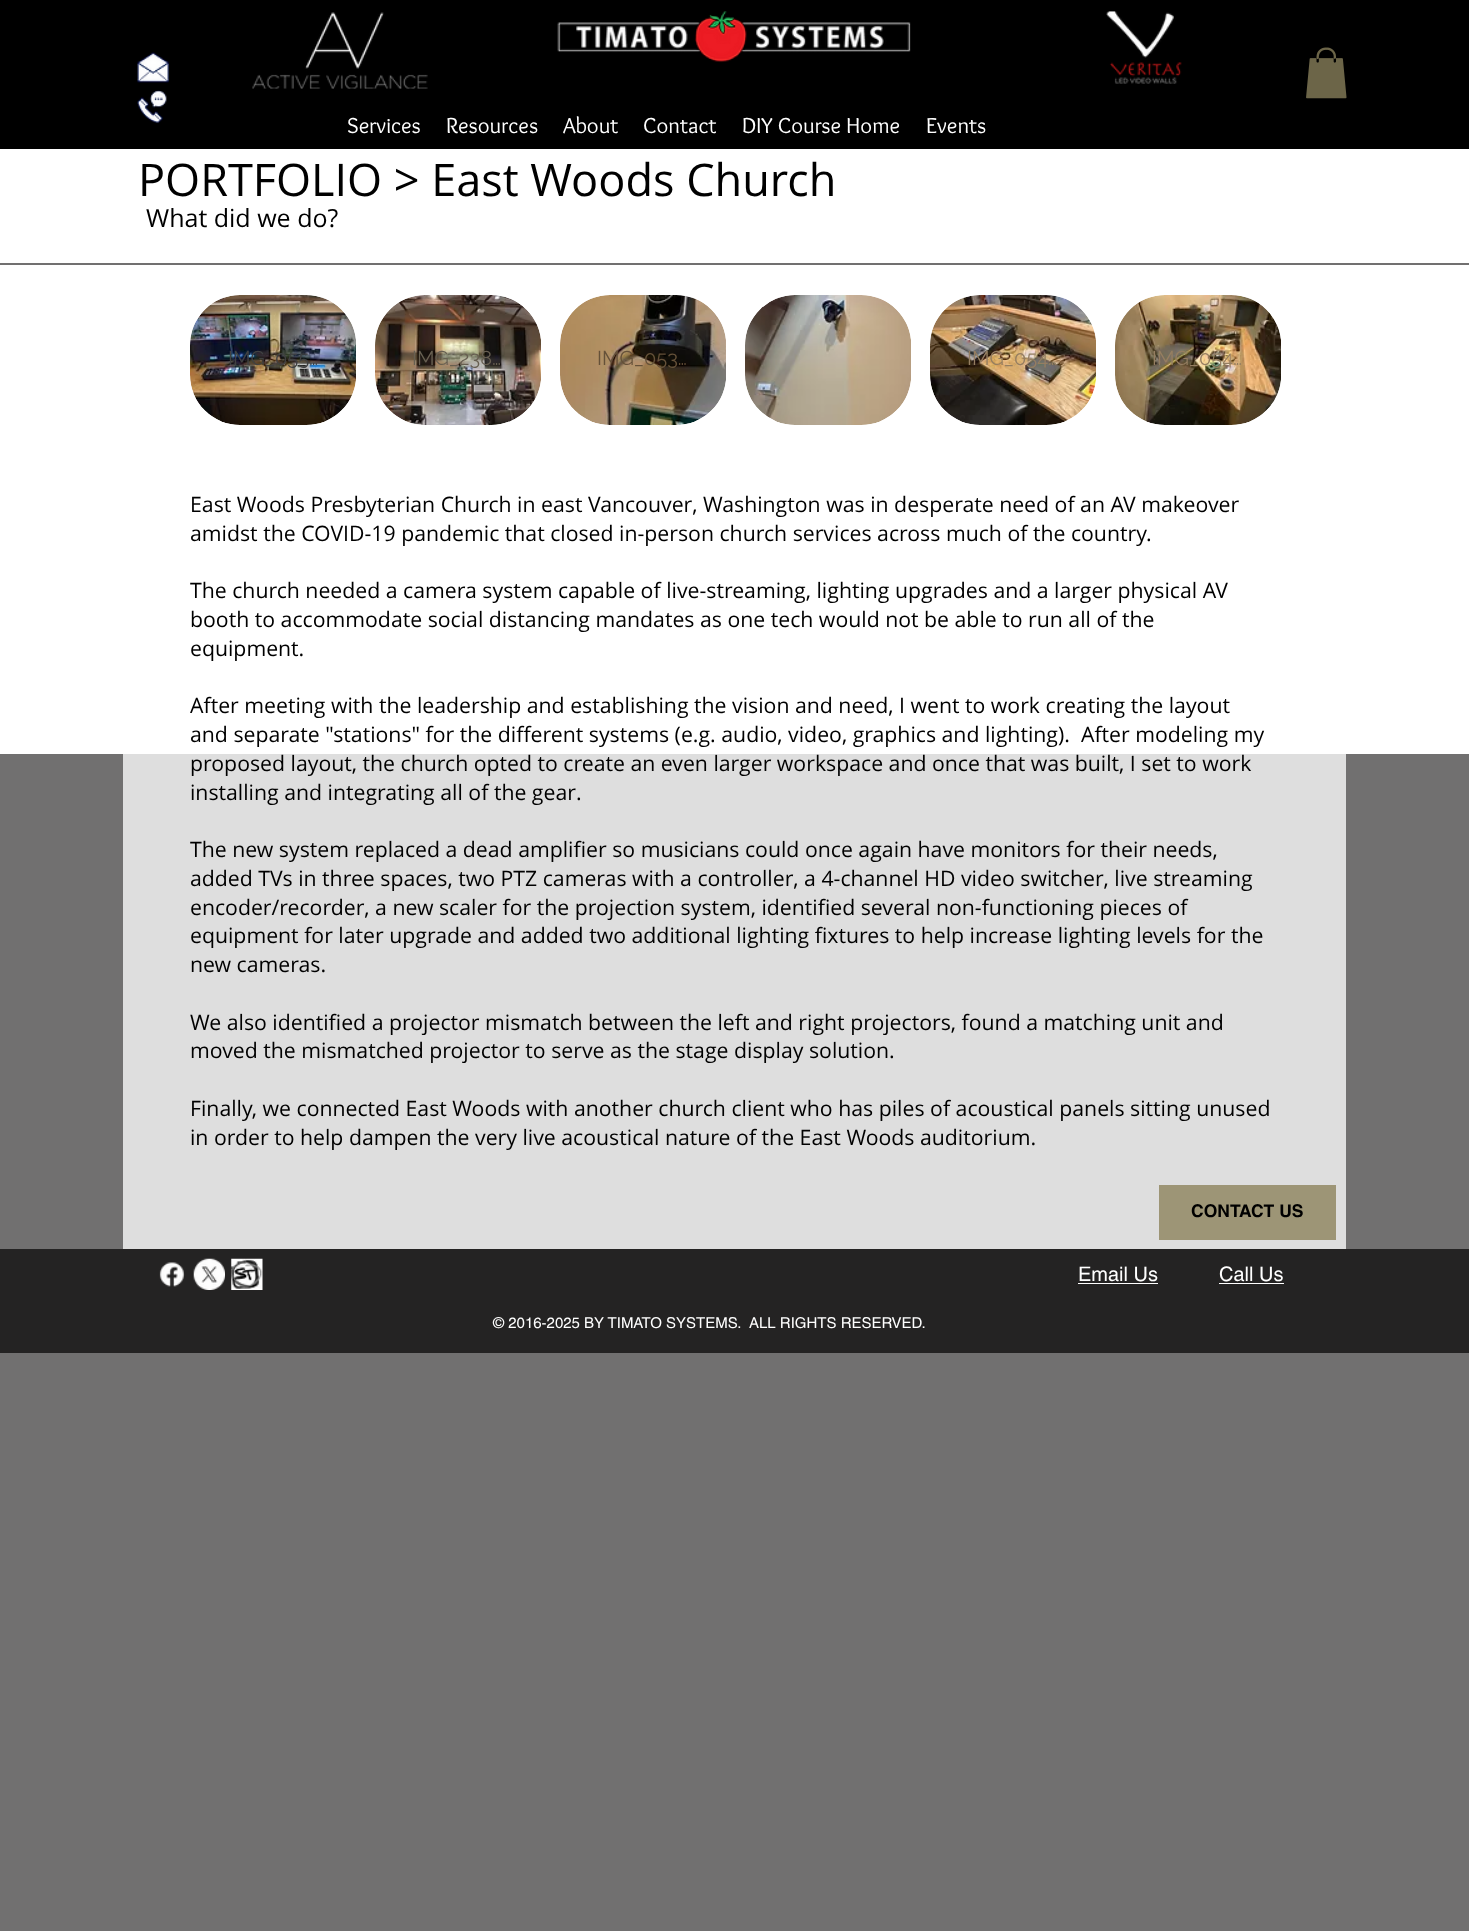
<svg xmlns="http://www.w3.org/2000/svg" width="1469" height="1931">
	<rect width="100%" height="100%" fill="#717070" />
	<rect x="0" y="0" width="1469" height="149" fill="#000000" />
	<image x="137" y="52" width="32" height="31" href="assets/img1.png" />
	<image x="252" y="12" width="176" height="77" href="assets/img2.png" />
	<image x="557" y="11" width="354" height="52" href="assets/img3.png" />
	<image x="1106" y="11" width="76" height="73" href="assets/img4.png" />
	<image x="1306" y="47" width="41" height="52" href="assets/img5.png" />
	<image x="137" y="90" width="30" height="34" href="assets/img6.png" />
	<g font-family="Overlock" font-size="22.5" fill="#FFFFFF">
		<text x="347" y="133">Services</text>
		<text x="446" y="133">Resources</text>
		<text x="563" y="133">About</text>
		<text x="643" y="133">Contact</text>
		<text x="742" y="133">DIY Course Home</text>
		<text x="926" y="133">Events</text>
	</g>
	<rect x="0" y="149" width="1469" height="114" fill="#FFFFFF" />
	<text x="138" y="196" font-family="Open Sans" font-size="45" fill="#000000">PORTFOLIO &gt; East Woods Church</text>
	<text x="146" y="227" font-family="Open Sans" font-size="25" fill="#000000">What did we do?</text>
	<rect x="0" y="265" width="1469" height="489" fill="#FFFFFF" />
	<image x="190" y="295" width="166" height="130" href="assets/img7.png" />
	<text x="228" y="365" font-family="Raleway" font-size="20" fill="#404142">IMG_055…</text>
	<image x="375" y="295" width="166" height="130" href="assets/img8.png" />
	<text x="412" y="365" font-family="Raleway" font-size="20" fill="#675F51">IMG_238…</text>
	<image x="560" y="295" width="166" height="130" href="assets/img9.png" />
	<text x="597" y="365" font-family="Raleway" font-size="20" fill="#655139">IMG_053…</text>
	<image x="745" y="295" width="166" height="130" href="assets/img10.png" />
	<image x="930" y="295" width="166" height="130" href="assets/img11.png" />
	<text x="967" y="365" font-family="Raleway" font-size="20" fill="#957E61">IMG_054…</text>
	<image x="1115" y="295" width="166" height="130" href="assets/img12.png" />
	<text x="1152" y="365" font-family="Raleway" font-size="20" fill="#957E61">IMG_054…</text>
	<g font-family="Open Sans" font-size="21.25" fill="#000000">
		<text x="190" y="512">East Woods Presbyterian Church in east Vancouver, Washington was in desperate need of an AV makeover</text>
		<text x="190" y="541">amidst the COVID-19 pandemic that closed in-person church services across much of the country.</text>
		<text x="190" y="598">The church needed a camera system capable of live-streaming, lighting upgrades and a larger physical AV</text>
		<text x="190" y="627">booth to accommodate social distancing mandates as one tech would not be able to run all of the</text>
		<text x="190" y="656">equipment.</text>
		<text x="190" y="713">After meeting with the leadership and establishing the vision and need, I went to work creating the layout</text>
		<text x="190" y="742" xml:space="preserve">and separate "stations" for the different systems (e.g. audio, video, graphics and lighting).  After modeling my</text>
	</g>
	<rect x="123" y="754" width="1223" height="495" fill="#DEDEDE" />
	<g font-family="Open Sans" font-size="21.25" fill="#000000">
		<text x="190" y="771">proposed layout, the church opted to create an even larger workspace and once that was built, I set to work</text>
		<text x="190" y="800">installing and integrating all of the gear.</text>
		<text x="190" y="857">The new system replaced a dead amplifier so musicians could once again have monitors for their needs,</text>
		<text x="190" y="886">added TVs in three spaces, two PTZ cameras with a controller, a 4-channel HD video switcher, live streaming</text>
		<text x="190" y="915">encoder/recorder, a new scaler for the projection system, identified several non-functioning pieces of</text>
		<text x="190" y="943">equipment for later upgrade and added two additional lighting fixtures to help increase lighting levels for the</text>
		<text x="190" y="972">new cameras.</text>
		<text x="190" y="1030">We also identified a projector mismatch between the left and right projectors, found a matching unit and</text>
		<text x="190" y="1058">moved the mismatched projector to serve as the stage display solution.</text>
		<text x="190" y="1116">Finally, we connected East Woods with another church client who has piles of acoustical panels sitting unused</text>
		<text x="190" y="1145">in order to help dampen the very live acoustical nature of the East Woods auditorium.</text>
	</g>
	<rect x="1159" y="1185" width="177" height="55" fill="#9D9576" />
	<text x="1191" y="1217" font-family="helvetica" font-size="17.5" font-weight="700" fill="#000000">CONTACT US</text>
	<rect x="0" y="1249" width="1469" height="104" fill="#242323" />
	<image x="159" y="1262" width="26" height="25" href="assets/img13.png" />
	<image x="193" y="1258" width="32" height="32" href="assets/img14.png" />
	<image x="231" y="1258" width="32" height="32" href="assets/img15.png" />
	<text x="1078" y="1281" font-family="helvetica" font-size="20" fill="#FFFFFF">Email Us</text>
	<rect x="1078" y="1283" width="80" height="1" fill="#FFFFFF" />
	<text x="1219" y="1281" font-family="helvetica" font-size="20" fill="#FFFFFF">Call Us</text>
	<rect x="1219" y="1283" width="65" height="1" fill="#FFFFFF" />
	<text x="493" y="1328" font-family="helvetica" font-size="15" fill="#FFFFFF" xml:space="preserve">© 2016-2025 BY TIMATO SYSTEMS.  ALL RIGHTS RESERVED.</text>
</svg>
